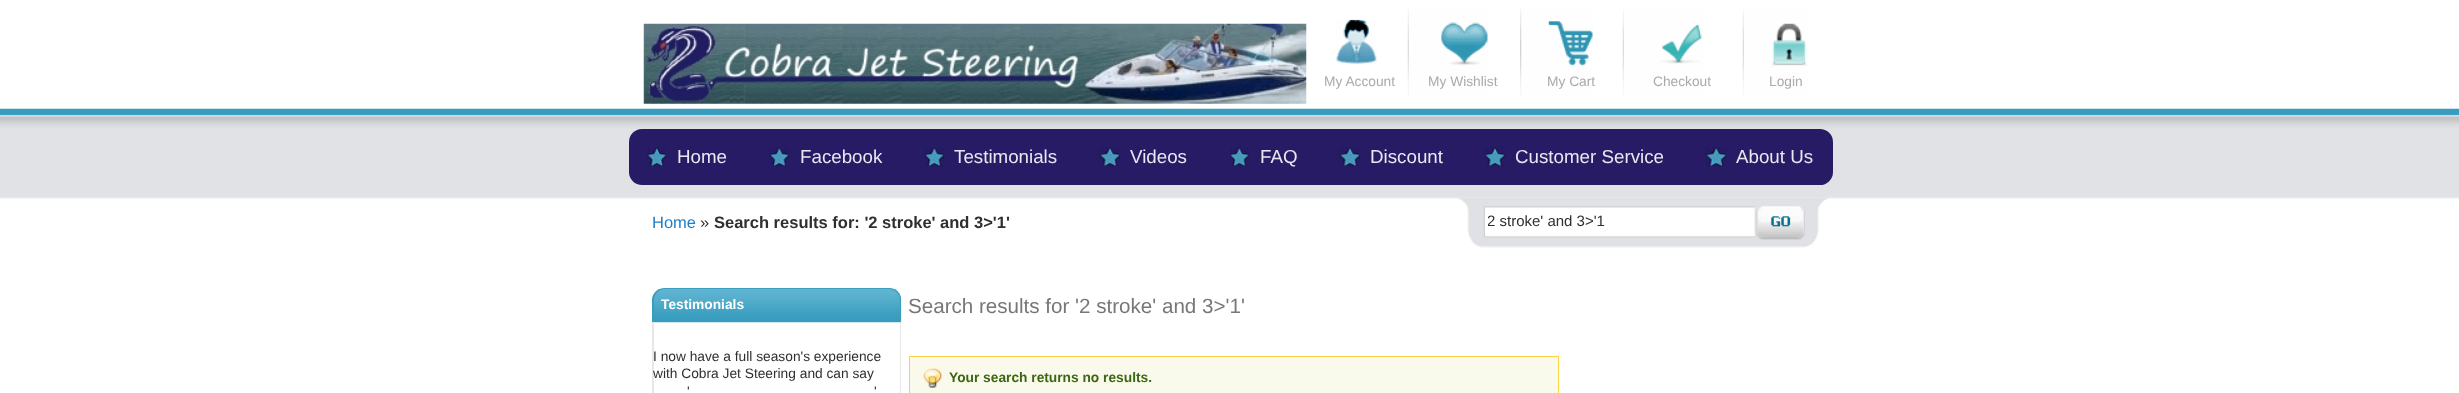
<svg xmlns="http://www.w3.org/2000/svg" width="2459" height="393">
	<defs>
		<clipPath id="clip1"><rect x="1488" y="213" width="258" height="18" /></clipPath>
	</defs>
	<rect width="100%" height="100%" fill="#FFFFFF" />
	<image x="0" y="108" width="2459" height="91" href="assets/img1.png" />
	<image x="643" y="23" width="664" height="81" href="assets/img2.png" />
	<image x="1335" y="19" width="42" height="45" href="assets/img3.png" />
	<text x="1324" y="86" font-family="Liberation Sans" font-size="13.75" fill="#AAAAAA">My Account</text>
	<image x="1407" y="9" width="81" height="87" href="assets/img4.png" />
	<text x="1428" y="86" font-family="Liberation Sans" font-size="13.75" fill="#AAAAAA">My Wishlist</text>
	<image x="1520" y="9" width="73" height="87" href="assets/img5.png" />
	<text x="1547" y="86" font-family="Liberation Sans" font-size="13.75" fill="#AAAAAA">My Cart</text>
	<image x="1622" y="9" width="81" height="87" href="assets/img6.png" />
	<text x="1653" y="86" font-family="Liberation Sans" font-size="13.75" fill="#AAAAAA">Checkout</text>
	<image x="1742" y="9" width="66" height="87" href="assets/img7.png" />
	<text x="1769" y="86" font-family="Liberation Sans" font-size="13.75" fill="#AAAAAA">Login</text>
	<rect x="629" y="129" width="1204" height="56" rx="13" fill="#271B65" />
	<image x="647" y="147" width="20" height="20" href="assets/img8.png" />
	<text x="677" y="163" font-family="Liberation Sans" font-size="18.75" fill="#E9E8F0">Home</text>
	<image x="770" y="147" width="19" height="20" href="assets/img9.png" />
	<text x="800" y="163" font-family="Liberation Sans" font-size="18.75" fill="#E9E8F0">Facebook</text>
	<image x="925" y="147" width="19" height="20" href="assets/img10.png" />
	<text x="954" y="163" font-family="Liberation Sans" font-size="18.75" fill="#E9E8F0">Testimonials</text>
	<image x="1100" y="147" width="20" height="20" href="assets/img11.png" />
	<text x="1130" y="163" font-family="Liberation Sans" font-size="18.75" fill="#E9E8F0">Videos</text>
	<image x="1230" y="147" width="19" height="20" href="assets/img9.png" />
	<text x="1260" y="163" font-family="Liberation Sans" font-size="18.75" fill="#E9E8F0">FAQ</text>
	<image x="1340" y="147" width="20" height="20" href="assets/img11.png" />
	<text x="1370" y="163" font-family="Liberation Sans" font-size="18.75" fill="#E9E8F0">Discount</text>
	<image x="1485" y="147" width="20" height="20" href="assets/img11.png" />
	<text x="1515" y="163" font-family="Liberation Sans" font-size="18.75" fill="#E9E8F0">Customer Service</text>
	<image x="1706" y="147" width="21" height="20" href="assets/img12.png" />
	<text x="1736" y="163" font-family="Liberation Sans" font-size="18.75" fill="#E9E8F0">About Us</text>
	<image x="1457" y="197" width="372" height="51" href="assets/img13.png" />
	<rect x="1485" y="210" width="1" height="24" fill="#FFFFFF" />
	<g clip-path="url(#clip1)">
		<text x="1487" y="226" font-family="Liberation Sans" font-size="15" fill="#2F2F2F">2 stroke' and 3&gt;'1</text>
	</g>
	<image x="1755" y="206" width="50" height="34" href="assets/img14.png" />
	<text x="652" y="228" font-family="Liberation Sans" font-size="16.5" fill="#1E7EC8">Home</text>
	<text x="700" y="228" font-family="Liberation Sans" font-size="16.5" fill="#2F2F2F">»</text>
	<text x="714" y="228" font-family="Liberation Sans" font-size="16.5" font-weight="700" fill="#2F2F2F">Search results for: '2 stroke' and 3&gt;'1'</text>
	<image x="652" y="288" width="250" height="35" href="assets/img15.png" />
	<path d="M665 288H889C896 288 901 293 901 300V322H652V300C652 293 658 288 665 288ZM665 289H889C895 289 900 294 900 300V322H654V300C654 294 659 289 665 289Z" fill="#399DBF" fill-rule="evenodd" />
	<text x="661" y="309" font-family="Liberation Sans" font-size="13.75" font-weight="700" fill="#FFFFFF">Testimonials</text>
	<path d="M652 322H901V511C901 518 896 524 889 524H665C658 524 652 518 652 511ZM654 322H900V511C900 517 895 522 889 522H665C659 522 654 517 654 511Z" fill="#E7E7E7" fill-rule="evenodd" />
	<g font-family="Liberation Sans" font-size="13.75" fill="#2F2F2F">
		<text x="653" y="361">I now have a full season's experience</text>
		<text x="653" y="378">with Cobra Jet Steering and can say</text>
		<text x="687" y="396">'</text>
		<text x="874" y="396">'</text>
	</g>
	<text x="908" y="313" font-family="Liberation Sans" font-size="20.6" fill="#777777">Search results for '2 stroke' and 3&gt;'1'</text>
	<rect x="910" y="357" width="648" height="36" fill="#FAFAEC" />
	<image x="923" y="368" width="19" height="20" href="assets/img16.png" />
	<rect x="909.5" y="356.5" width="649" height="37" fill="none" stroke="#FCD344" />
	<text x="949" y="382" font-family="Liberation Sans" font-size="13.75" font-weight="700" fill="#3D6611">Your search returns no results.</text>
</svg>
